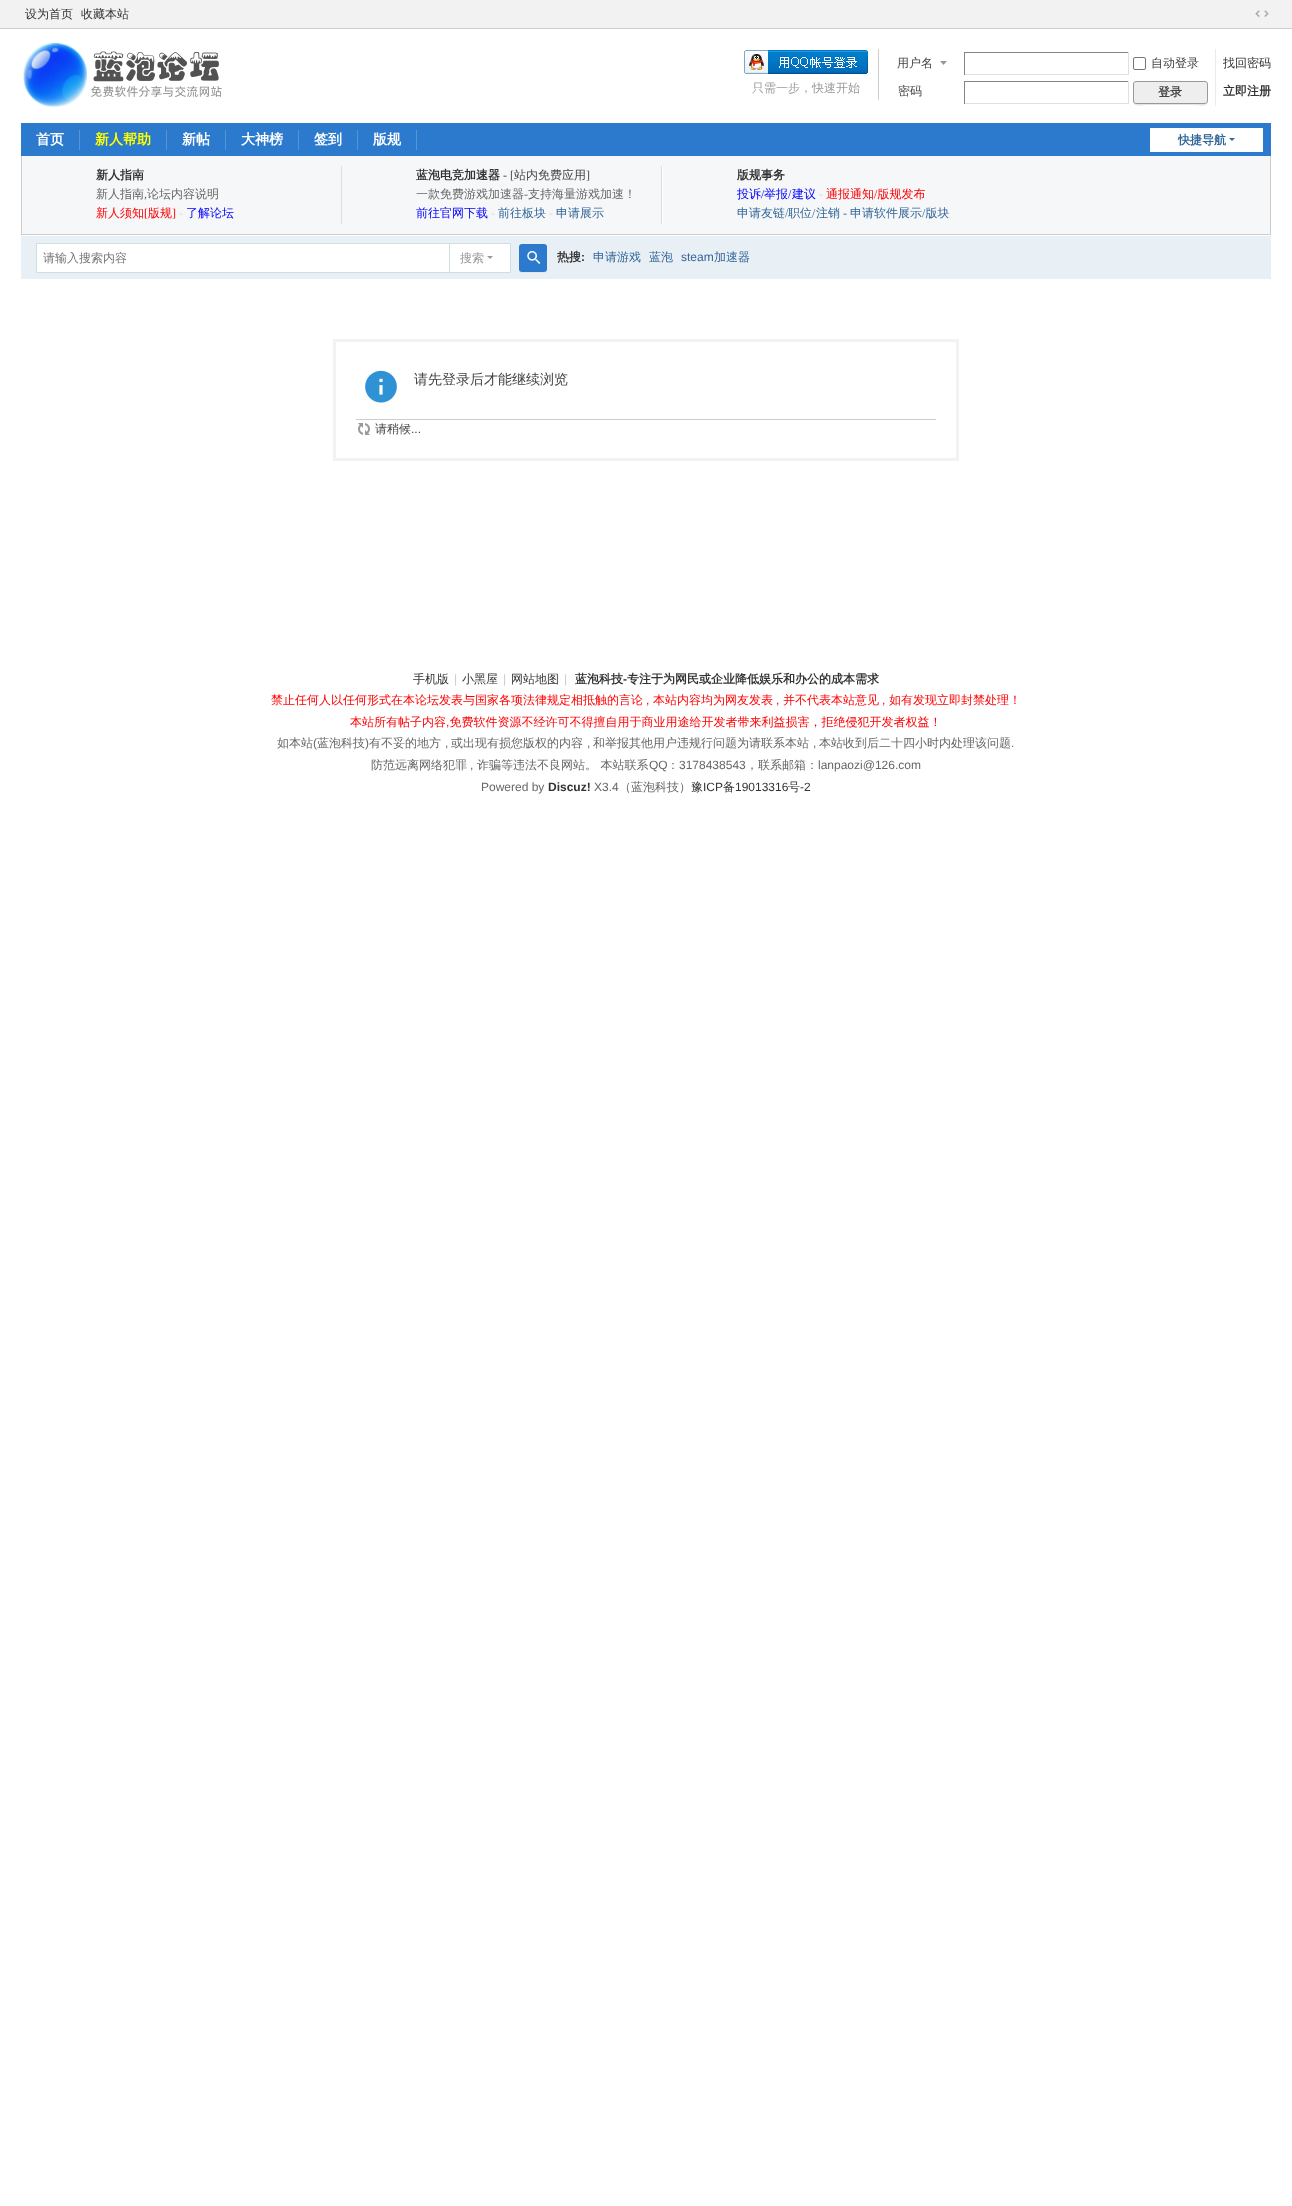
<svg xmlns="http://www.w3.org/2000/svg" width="1292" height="2206">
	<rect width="100%" height="100%" fill="#FFFFFF" />
	<rect x="0" y="0" width="1292" height="28" fill="#F2F2F2" />
	<rect x="0" y="28" width="1292" height="1" fill="#CDCDCD" />
	<g font-family="WenQuanYi Zen Hei" font-size="12" font-weight="500" fill="#333333">
		<text x="25" y="18">设为首页</text>
		<text x="81" y="18">收藏本站</text>
	</g>
	<image x="1255" y="10" width="14" height="7" href="assets/img1.png" />
	<image x="23" y="43" width="199" height="64" href="assets/img2.png" />
	<rect x="878" y="49" width="1" height="51" fill="#CDCDCD" />
	<image x="744" y="50" width="124" height="24" href="assets/img3.png" />
	<text x="752" y="92" font-family="WenQuanYi Zen Hei" font-size="12" font-weight="500" fill="#999999">只需一步，快速开始</text>
	<path d="M947 61H940L943.5 65Z" fill="#999999" />
	<text x="897" y="67" font-family="WenQuanYi Zen Hei" font-size="12" font-weight="500" fill="#444444">用户名</text>
	<rect x="964" y="52" width="165" height="1" fill="#848484" />
	<rect x="1128" y="52" width="1" height="23" fill="#E0E0E0" />
	<rect x="964" y="74" width="165" height="1" fill="#E0E0E0" />
	<rect x="964" y="52" width="1" height="23" fill="#848484" />
	<rect x="1133.5" y="57.5" width="12" height="12" rx="1.5" fill="none" stroke="#767676" />
	<text x="1151" y="67" font-family="WenQuanYi Zen Hei" font-size="12" font-weight="500" fill="#444444">自动登录</text>
	<text x="1223" y="67" font-family="WenQuanYi Zen Hei" font-size="12" font-weight="500" fill="#333333">找回密码</text>
	<text x="898" y="95" font-family="WenQuanYi Zen Hei" font-size="12" font-weight="500" fill="#444444">密码</text>
	<rect x="964" y="81" width="165" height="1" fill="#848484" />
	<rect x="1128" y="81" width="1" height="23" fill="#E0E0E0" />
	<rect x="964" y="103" width="165" height="1" fill="#E0E0E0" />
	<rect x="964" y="81" width="1" height="23" fill="#848484" />
	<rect x="1215" y="49" width="1" height="57" fill="#E5EDF2" />
	<path d="M1133 101C1133 108 1143 105 1148 105H1194C1198 105 1208 108 1208 101C1208 103 1207 104 1205 104H1136C1134 104 1133 103 1133 101Z" fill="#E5E5E5" />
	<rect x="1133.5" y="81.5" width="74" height="22" rx="2.5" fill="#EEEEEE" stroke="#999999" />
	<text x="1158" y="96" font-family="WenQuanYi Zen Hei" font-size="12" font-weight="700" fill="#444444">登录</text>
	<text x="1223" y="95" font-family="WenQuanYi Zen Hei" font-size="12" font-weight="700" fill="#333333">立即注册</text>
	<rect x="21" y="123" width="1250" height="33" fill="#2B7ACD" />
	<rect x="79" y="130" width="1" height="20" fill="#5595D7" />
	<text x="36" y="144" font-family="WenQuanYi Zen Hei" font-size="14" font-weight="700" fill="#FFFFFF">首页</text>
	<rect x="166" y="130" width="1" height="20" fill="#5595D7" />
	<text x="95" y="144" font-family="WenQuanYi Zen Hei" font-size="14" font-weight="700" fill="#FFFF00">新人帮助</text>
	<rect x="225" y="130" width="1" height="20" fill="#5595D7" />
	<text x="182" y="144" font-family="WenQuanYi Zen Hei" font-size="14" font-weight="700" fill="#FFFFFF">新帖</text>
	<rect x="298" y="130" width="1" height="20" fill="#5595D7" />
	<text x="241" y="144" font-family="WenQuanYi Zen Hei" font-size="14" font-weight="700" fill="#FFFFFF">大神榜</text>
	<rect x="357" y="130" width="1" height="20" fill="#5595D7" />
	<text x="314" y="144" font-family="WenQuanYi Zen Hei" font-size="14" font-weight="700" fill="#FFFFFF">签到</text>
	<rect x="416" y="130" width="1" height="20" fill="#5595D7" />
	<text x="373" y="144" font-family="WenQuanYi Zen Hei" font-size="14" font-weight="700" fill="#FFFFFF">版规</text>
	<rect x="1150" y="128" width="113" height="24" fill="#FFFFFF" />
	<text x="1178" y="144" font-family="WenQuanYi Zen Hei" font-size="12" font-weight="700" fill="#336699">快捷导航</text>
	<path d="M1229 138H1235L1232 141Z" fill="#336699" />
	<rect x="1270" y="156" width="1" height="79" fill="#CDCDCD" />
	<rect x="21" y="234" width="1250" height="1" fill="#CDCDCD" />
	<rect x="21" y="156" width="1" height="79" fill="#CDCDCD" />
	<rect x="22" y="156" width="1248" height="78" fill="#F5F7F9" />
	<rect x="341" y="166" width="1" height="58" fill="#DDDDDD" />
	<text x="96" y="179" font-family="WenQuanYi Zen Hei" font-size="12" font-weight="700" fill="#333333">新人指南</text>
	<text x="96" y="198" font-family="WenQuanYi Zen Hei" font-size="12" font-weight="500" fill="#666666">新人指南</text>
	<text x="144" y="198" font-family="Liberation Serif" font-size="12" fill="#666666">,</text>
	<text x="147" y="198" font-family="WenQuanYi Zen Hei" font-size="12" font-weight="500" fill="#666666">论坛内容说明</text>
	<text x="96" y="217" font-family="WenQuanYi Zen Hei" font-size="12" font-weight="500" fill="#FF0000">新人须知</text>
	<text x="144" y="217" font-family="Liberation Serif" font-size="12" fill="#FF0000">[</text>
	<text x="148" y="217" font-family="WenQuanYi Zen Hei" font-size="12" font-weight="500" fill="#FF0000">版规</text>
	<text x="172" y="217" font-family="Liberation Serif" font-size="12" fill="#FF0000">]</text>
	<text x="179" y="217" font-family="Liberation Serif" font-size="12" fill="#D3DFDF">-</text>
	<text x="186" y="217" font-family="WenQuanYi Zen Hei" font-size="12" font-weight="500" fill="#0000FF">了解论坛</text>
	<rect x="661" y="166" width="1" height="58" fill="#DDDDDD" />
	<text x="416" y="179" font-family="WenQuanYi Zen Hei" font-size="12" font-weight="700" fill="#333333">蓝泡电竞加速器</text>
	<text x="503" y="179" font-family="Liberation Serif" font-size="12" fill="#444444">- [</text>
	<text x="514" y="179" font-family="WenQuanYi Zen Hei" font-size="12" font-weight="500" fill="#444444">站内免费应用</text>
	<text x="586" y="179" font-family="Liberation Serif" font-size="12" fill="#444444">]</text>
	<text x="416" y="198" font-family="WenQuanYi Zen Hei" font-size="12" font-weight="500" fill="#666666">一款免费游戏加速器</text>
	<text x="524" y="198" font-family="Liberation Serif" font-size="12" fill="#666666">-</text>
	<text x="528" y="198" font-family="WenQuanYi Zen Hei" font-size="12" font-weight="500" fill="#666666">支持海量游戏加速！</text>
	<text x="416" y="217" font-family="WenQuanYi Zen Hei" font-size="12" font-weight="500" fill="#0000FF">前往官网下载</text>
	<text x="491" y="217" font-family="Liberation Serif" font-size="12" fill="#D3DFDF">-</text>
	<text x="498" y="217" font-family="WenQuanYi Zen Hei" font-size="12" font-weight="500" fill="#336699">前往板块</text>
	<text x="549" y="217" font-family="Liberation Serif" font-size="12" fill="#D3DFDF">-</text>
	<text x="556" y="217" font-family="WenQuanYi Zen Hei" font-size="12" font-weight="500" fill="#336699">申请展示</text>
	<rect x="662" y="166" width="1" height="58" fill="#FFFFFF" />
	<text x="737" y="179" font-family="WenQuanYi Zen Hei" font-size="12" font-weight="700" fill="#333333">版规事务</text>
	<text x="737" y="198" font-family="WenQuanYi Zen Hei" font-size="12" font-weight="500" fill="#0000FF">投诉</text>
	<text x="761" y="198" font-family="Liberation Serif" font-size="12" fill="#0000FF">/</text>
	<text x="764" y="198" font-family="WenQuanYi Zen Hei" font-size="12" font-weight="500" fill="#0000FF">举报</text>
	<text x="788" y="198" font-family="Liberation Serif" font-size="12" fill="#0000FF">/</text>
	<text x="792" y="198" font-family="WenQuanYi Zen Hei" font-size="12" font-weight="500" fill="#0000FF">建议</text>
	<text x="826" y="198" font-family="WenQuanYi Zen Hei" font-size="12" font-weight="500" fill="#FF0000">通报通知 版规发布</text>
	<text x="819" y="198" font-family="Liberation Serif" font-size="12" fill="#D3DFDF">-</text>
	<text x="874" y="198" font-family="Liberation Serif" font-size="12" fill="#FF0000">/</text>
	<text x="737" y="217" font-family="WenQuanYi Zen Hei" font-size="12" font-weight="500" fill="#336699">申请友链</text>
	<text x="785" y="217" font-family="Liberation Serif" font-size="12" fill="#336699">/</text>
	<text x="788" y="217" font-family="WenQuanYi Zen Hei" font-size="12" font-weight="500" fill="#336699">职位</text>
	<text x="812" y="217" font-family="Liberation Serif" font-size="12" fill="#336699">/</text>
	<g font-family="WenQuanYi Zen Hei" font-size="12" font-weight="500" fill="#336699">
		<text x="816" y="217">注销</text>
		<text x="850" y="217">申请软件展示 版块</text>
	</g>
	<g font-family="Liberation Serif" font-size="12" fill="#336699">
		<text x="843" y="217">-</text>
		<text x="922" y="217">/</text>
	</g>
	<rect x="21" y="236" width="1250" height="43" fill="#E8EFF5" />
	<rect x="448" y="243" width="63" height="1" fill="#CFDEE3" />
	<rect x="510" y="243" width="1" height="30" fill="#CFDEE3" />
	<rect x="448" y="272" width="63" height="1" fill="#CFDEE3" />
	<rect x="36.5" y="243.5" width="413" height="29" fill="#FFFFFF" stroke="#CFDEE3" />
	<text x="43" y="262" font-family="WenQuanYi Zen Hei" font-size="12" font-weight="500" fill="#757575">请输入搜索内容</text>
	<rect x="450" y="244" width="60" height="28" fill="#FFFFFF" />
	<text x="460" y="262" font-family="WenQuanYi Zen Hei" font-size="12" font-weight="500" fill="#999999">搜索</text>
	<path d="M487 256H493L490 259Z" fill="#999999" />
	<path d="M519 269C519 273.5 522 273 525.5 273H540.5C544 273 547 273.5 547 269C547 270.5 545.5 272 544 272H522C520.5 272 519 270.5 519 269Z" fill="#E5E5E5" />
	<rect x="519" y="244" width="28" height="28" rx="3" fill="#2B7ACD" />
	<image x="527" y="251" width="14" height="13" href="assets/img4.png" />
	<text x="557" y="261" font-family="WenQuanYi Zen Hei" font-size="12" font-weight="700" fill="#333333">热搜</text>
	<text x="581" y="261" font-family="Liberation Sans" font-size="12" font-weight="700" fill="#333333">:</text>
	<g font-family="WenQuanYi Zen Hei" font-size="12" font-weight="500" fill="#336699">
		<text x="593" y="261">申请游戏</text>
		<text x="649" y="261">蓝泡</text>
	</g>
	<text x="681" y="261" font-family="Liberation Sans" font-size="12" fill="#336699">steam</text>
	<text x="714" y="261" font-family="WenQuanYi Zen Hei" font-size="12" font-weight="500" fill="#336699">加速器</text>
	<rect x="334.5" y="340.5" width="623" height="119" fill="none" stroke="#F2F2F2" stroke-width="3" />
	<image x="365" y="370" width="32" height="33" href="assets/img5.png" />
	<text x="414" y="384" font-family="WenQuanYi Zen Hei" font-size="14" font-weight="500" fill="#444444">请先登录后才能继续浏览</text>
	<rect x="356" y="419" width="580" height="1" fill="#CDCDCD" />
	<image x="358" y="423" width="12" height="12" href="assets/img6.png" />
	<text x="375" y="433" font-family="WenQuanYi Zen Hei" font-size="12" font-weight="500" fill="#444444">请稍候</text>
	<text x="411" y="433" font-family="Liberation Sans" font-size="12" fill="#444444">...</text>
	<text x="413" y="683" font-family="WenQuanYi Zen Hei" font-size="12" font-weight="500" fill="#333333">手机版</text>
	<text x="454" y="683" font-family="Liberation Sans" font-size="12" fill="#CCCCCC">|</text>
	<text x="462" y="683" font-family="WenQuanYi Zen Hei" font-size="12" font-weight="500" fill="#333333">小黑屋</text>
	<text x="503" y="683" font-family="Liberation Sans" font-size="12" fill="#CCCCCC">|</text>
	<text x="511" y="683" font-family="WenQuanYi Zen Hei" font-size="12" font-weight="500" fill="#333333">网站地图</text>
	<text x="564" y="683" font-family="Liberation Sans" font-size="12" fill="#CCCCCC">|</text>
	<text x="575" y="683" font-family="WenQuanYi Zen Hei" font-size="12" font-weight="700" fill="#333333">蓝泡科技</text>
	<text x="623" y="683" font-family="Liberation Sans" font-size="12" font-weight="700" fill="#333333">-</text>
	<text x="627" y="683" font-family="WenQuanYi Zen Hei" font-size="12" font-weight="700" fill="#333333">专注于为网民或企业降低娱乐和办公的成本需求</text>
	<text x="271" y="704" font-family="WenQuanYi Zen Hei" font-size="12" font-weight="500" fill="#FF0000">禁止任何人以任何形式在本论坛发表与国家各项法律规定相抵触的言论</text>
	<text x="646" y="704" font-family="Liberation Sans" font-size="12" fill="#FF0000">,</text>
	<text x="653" y="704" font-family="WenQuanYi Zen Hei" font-size="12" font-weight="500" fill="#FF0000">本站内容均为网友发表</text>
	<text x="776" y="704" font-family="Liberation Sans" font-size="12" fill="#FF0000">,</text>
	<text x="783" y="704" font-family="WenQuanYi Zen Hei" font-size="12" font-weight="500" fill="#FF0000">并不代表本站意见</text>
	<text x="882" y="704" font-family="Liberation Sans" font-size="12" fill="#FF0000">,</text>
	<g font-family="WenQuanYi Zen Hei" font-size="12" font-weight="500" fill="#FF0000">
		<text x="889" y="704">如有发现立即封禁处理！</text>
		<text x="350" y="726">本站所有帖子内容 免费软件资源不经许可不得擅自用于商业用途给开发者带来利益损害，拒绝侵犯开发者权益！</text>
	</g>
	<text x="446" y="726" font-family="Liberation Sans" font-size="12" fill="#FF0000">,</text>
	<text x="277" y="747" font-family="WenQuanYi Zen Hei" font-size="12" font-weight="500" fill="#666666">如本站</text>
	<text x="313" y="747" font-family="Liberation Sans" font-size="12" fill="#666666">(</text>
	<text x="317" y="747" font-family="WenQuanYi Zen Hei" font-size="12" font-weight="500" fill="#666666">蓝泡科技</text>
	<text x="365" y="747" font-family="Liberation Sans" font-size="12" fill="#666666">)</text>
	<text x="369" y="747" font-family="WenQuanYi Zen Hei" font-size="12" font-weight="500" fill="#666666">有不妥的地方</text>
	<text x="445" y="747" font-family="Liberation Sans" font-size="12" fill="#666666">,</text>
	<text x="451" y="747" font-family="WenQuanYi Zen Hei" font-size="12" font-weight="500" fill="#666666">或出现有损您版权的内容</text>
	<text x="587" y="747" font-family="Liberation Sans" font-size="12" fill="#666666">,</text>
	<text x="593" y="747" font-family="WenQuanYi Zen Hei" font-size="12" font-weight="500" fill="#666666">和举报其他用户违规行问题为请联系本站</text>
	<text x="813" y="747" font-family="Liberation Sans" font-size="12" fill="#666666">,</text>
	<text x="819" y="747" font-family="WenQuanYi Zen Hei" font-size="12" font-weight="500" fill="#666666">本站收到后二十四小时内处理该问题</text>
	<text x="1011" y="747" font-family="Liberation Sans" font-size="12" fill="#666666">.</text>
	<text x="371" y="769" font-family="WenQuanYi Zen Hei" font-size="12" font-weight="500" fill="#666666">防范远离网络犯罪</text>
	<text x="470" y="769" font-family="Liberation Sans" font-size="12" fill="#666666">,</text>
	<text x="477" y="769" font-family="WenQuanYi Zen Hei" font-size="12" font-weight="500" fill="#666666">诈骗等违法不良网站。 本站联系</text>
	<text x="649" y="769" font-family="Liberation Sans" font-size="12" fill="#666666">QQ</text>
	<text x="667" y="769" font-family="WenQuanYi Zen Hei" font-size="12" font-weight="500" fill="#666666">：</text>
	<text x="679" y="769" font-family="Liberation Sans" font-size="12" fill="#666666">3178438543</text>
	<text x="746" y="769" font-family="WenQuanYi Zen Hei" font-size="12" font-weight="500" fill="#666666">，联系邮箱：</text>
	<g font-family="Liberation Sans" font-size="12" fill="#666666">
		<text x="818" y="769">lanpaozi@126.com</text>
		<text x="481" y="791">Powered by</text>
	</g>
	<text x="548" y="791" font-family="Liberation Sans" font-size="12" font-weight="700" fill="#333333">Discuz!</text>
	<text x="594" y="791" font-family="Liberation Sans" font-size="12" fill="#666666">X3.4</text>
	<text x="619" y="791" font-family="WenQuanYi Zen Hei" font-size="12" font-weight="500" fill="#666666">（蓝泡科技）</text>
	<text x="691" y="791" font-family="WenQuanYi Zen Hei" font-size="12" font-weight="500" fill="#333333">豫</text>
	<text x="703" y="791" font-family="Liberation Sans" font-size="12" fill="#333333">ICP</text>
	<text x="723" y="791" font-family="WenQuanYi Zen Hei" font-size="12" font-weight="500" fill="#333333">备</text>
	<text x="735" y="791" font-family="Liberation Sans" font-size="12" fill="#333333">19013316</text>
	<text x="788" y="791" font-family="WenQuanYi Zen Hei" font-size="12" font-weight="500" fill="#333333">号</text>
	<text x="800" y="791" font-family="Liberation Sans" font-size="12" fill="#333333">-2</text>
</svg>
